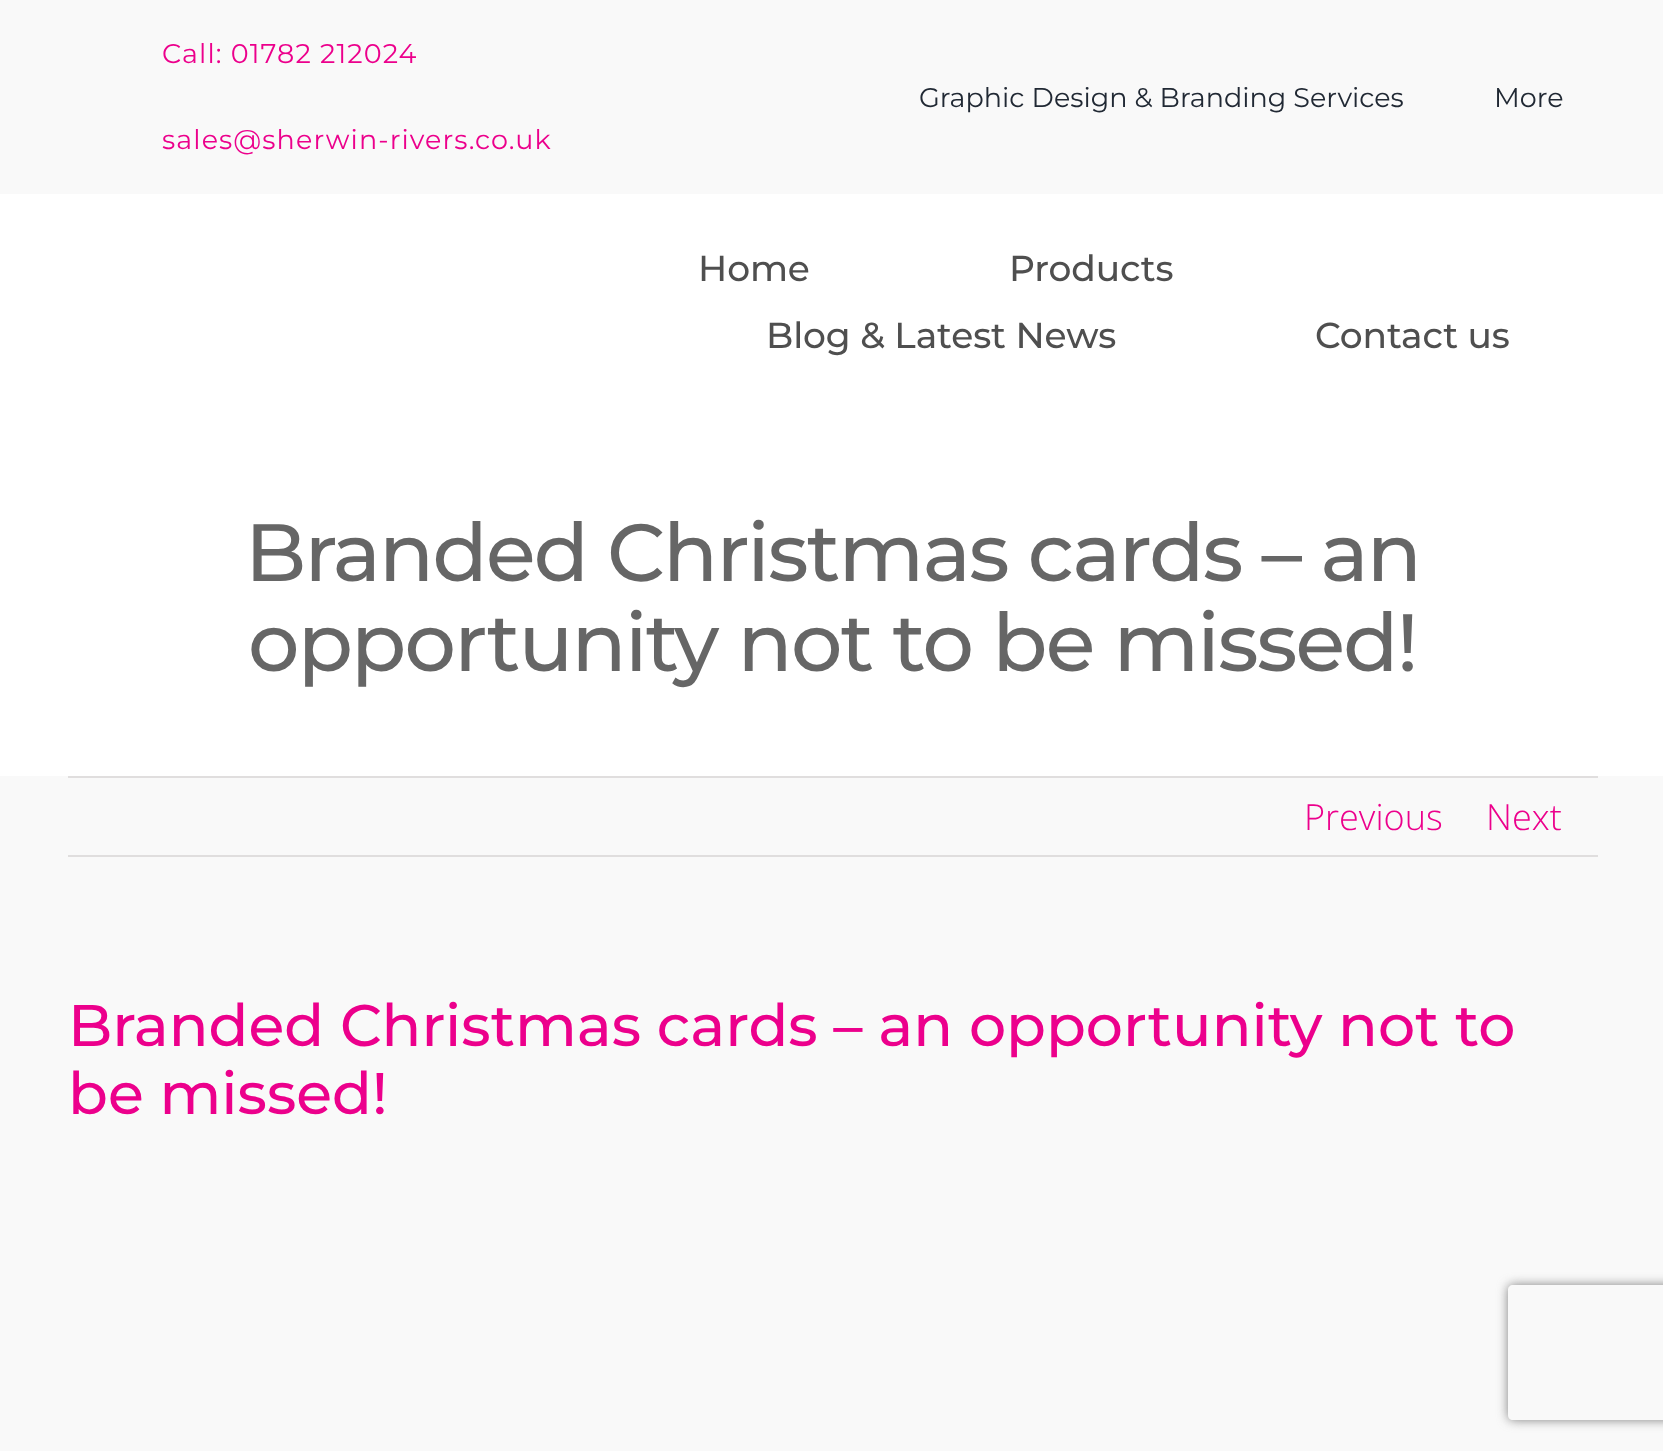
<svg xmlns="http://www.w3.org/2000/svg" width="1663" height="1451">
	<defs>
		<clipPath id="clip1"><path d="M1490 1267H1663V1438H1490ZM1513 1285H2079C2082 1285 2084 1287 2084 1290V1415C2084 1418 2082 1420 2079 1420H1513C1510 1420 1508 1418 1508 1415V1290C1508 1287 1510 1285 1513 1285Z" clip-rule="evenodd" /></clipPath>
	</defs>
	<rect width="100%" height="100%" fill="#F9F9F9" />
	<g font-family="Montserrat" font-size="27" letter-spacing="1.1" fill="#EC008C">
		<text x="162" y="63">Call: 01782 212024</text>
		<text x="162" y="149">sales@sherwin-rivers.co.uk</text>
	</g>
	<g font-family="Montserrat" font-size="27" fill="#212934">
		<text x="919" y="107">Graphic Design &amp; Branding Services</text>
		<text x="1494" y="107">More</text>
	</g>
	<rect x="0" y="194" width="1663" height="582" fill="#FFFFFF" />
	<g font-family="Montserrat" font-size="36" font-weight="500" letter-spacing="-0.1" fill="#4F4F4F">
		<text x="698" y="281">Home</text>
		<text x="1009" y="281">Products</text>
		<text x="766" y="348">Blog &amp; Latest News</text>
		<text x="1315" y="348">Contact us</text>
	</g>
	<g font-family="Montserrat" font-size="81" font-weight="500" letter-spacing="-1.8" fill="#666666">
		<text x="245" y="581">Branded Christmas cards – an</text>
		<text x="248" y="671">opportunity not to be missed!</text>
	</g>
	<rect x="68" y="776" width="1530" height="2" fill="#E0DEDE" />
	<rect x="68" y="855" width="1530" height="2" fill="#E0DEDE" />
	<g font-family="Open Sans" font-size="36" font-weight="300" fill="#EC008C">
		<text x="1304" y="830">Previous</text>
		<text x="1486" y="830">Next</text>
	</g>
	<g font-family="Montserrat" font-size="58.5" font-weight="500" fill="#EC008C">
		<text x="68" y="1046">Branded Christmas cards – an opportunity not to</text>
		<text x="68" y="1114">be missed!</text>
	</g>
	<g clip-path="url(#clip1)">
		<rect x="1508" y="1285" width="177" height="135" rx="5" fill="#808080" filter="blur(5.5px)" />
	</g>
</svg>
